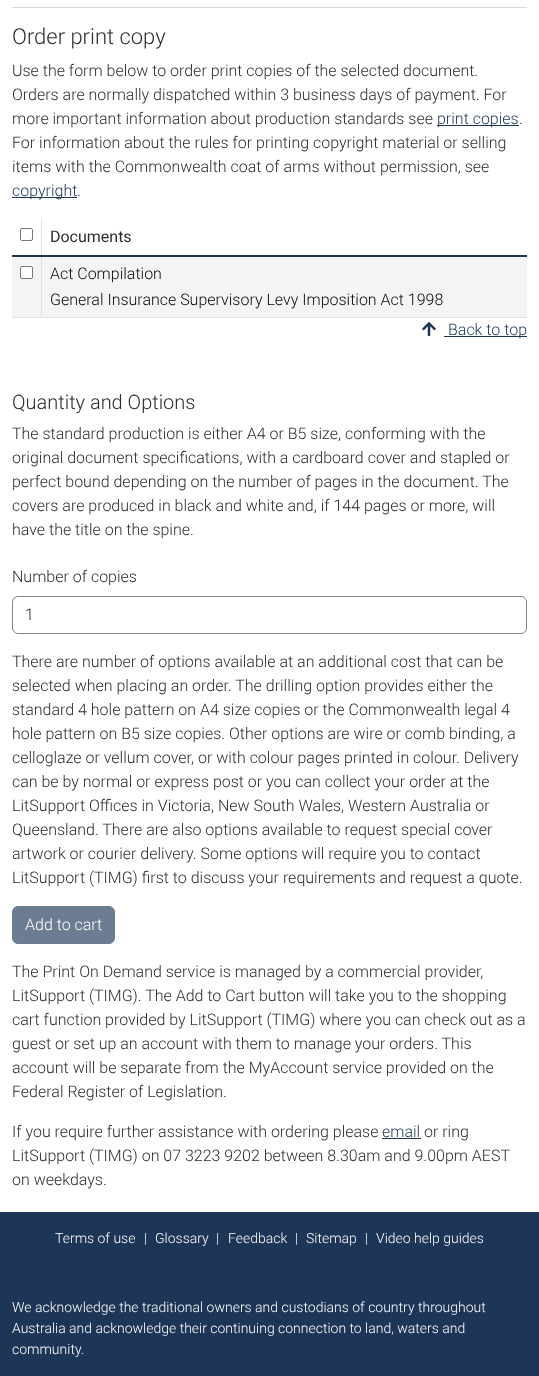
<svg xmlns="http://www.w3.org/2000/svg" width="539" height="1376">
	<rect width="100%" height="100%" fill="#FFFFFF" />
	<rect x="12" y="7" width="515" height="1" fill="#D0DDE5" />
	<text x="12" y="44" font-family="Roboto" font-size="22" font-weight="300" fill="#2D2D31">Order print copy</text>
	<g font-family="Roboto" font-size="16" font-weight="300" fill="#2D2D31">
		<text x="12" y="76">Use the form below to order print copies of the selected document.</text>
		<text x="12" y="100">Orders are normally dispatched within 3 business days of payment. For</text>
		<text x="12" y="124">more important information about production standards see</text>
	</g>
	<rect x="437" y="125" width="82" height="1" fill="#1D3557" />
	<text x="437" y="124" font-family="Roboto" font-size="16" font-weight="300" fill="#1D3557">print copies</text>
	<g font-family="Roboto" font-size="16" font-weight="300" fill="#2D2D31">
		<text x="519" y="124">.</text>
		<text x="12" y="148">For information about the rules for printing copyright material or selling</text>
		<text x="12" y="172">items with the Commonwealth coat of arms without permission, see</text>
	</g>
	<rect x="12" y="197" width="65" height="1" fill="#1D3557" />
	<text x="12" y="196" font-family="Roboto" font-size="16" font-weight="300" fill="#1D3557">copyright</text>
	<text x="77" y="196" font-family="Roboto" font-size="16" font-weight="300" fill="#2D2D31">.</text>
	<rect x="41" y="219" width="1" height="37" fill="#E1E1E2" />
	<rect x="12" y="255" width="515" height="2" fill="#1D3557" />
	<rect x="20.5" y="228.5" width="12" height="12" rx="1.5" fill="none" stroke="#767676" />
	<text x="50" y="242" font-family="Roboto" font-size="16" fill="#2D2D31">Documents</text>
	<rect x="12" y="257" width="515" height="60" fill="#F4F4F4" />
	<rect x="41" y="257" width="1" height="61" fill="#E1E1E2" />
	<rect x="12" y="317" width="515" height="1" fill="#E1E1E2" />
	<rect x="20.5" y="266.5" width="12" height="12" rx="1.5" fill="#FFFFFF" stroke="#767676" />
	<g font-family="Roboto" font-size="16" font-weight="300" fill="#08080D">
		<text x="50" y="279">Act Compilation</text>
		<text x="50" y="305">General Insurance Supervisory Levy Imposition Act 1998</text>
	</g>
	<image x="422" y="322" width="14" height="14" href="assets/img1.png" />
	<rect x="444" y="336" width="83" height="1" fill="#1D3557" />
	<text x="448" y="335" font-family="Roboto" font-size="16" font-weight="300" fill="#1D3557">Back to top</text>
	<text x="12" y="409" font-family="Roboto" font-size="20" font-weight="300" fill="#2D2D31">Quantity and Options</text>
	<g font-family="Roboto" font-size="16" font-weight="300" fill="#2D2D31">
		<text x="12" y="439">The standard production is either A4 or B5 size, conforming with the</text>
		<text x="12" y="463">original document specifications, with a cardboard cover and stapled or</text>
		<text x="12" y="487">perfect bound depending on the number of pages in the document. The</text>
		<text x="12" y="511">covers are produced in black and white and, if 144 pages or more, will</text>
		<text x="12" y="535">have the title on the spine.</text>
		<text x="12" y="582">Number of copies</text>
	</g>
	<rect x="12.5" y="596.5" width="514" height="37" rx="5.5" fill="none" stroke="#848486" />
	<g font-family="Roboto" font-size="16" font-weight="300" fill="#2D2D31">
		<text x="25" y="620">1</text>
		<text x="12" y="667">There are number of options available at an additional cost that can be</text>
		<text x="12" y="691">selected when placing an order. The drilling option provides either the</text>
		<text x="12" y="715">standard 4 hole pattern on A4 size copies or the Commonwealth legal 4</text>
		<text x="12" y="739">hole pattern on B5 size copies. Other options are wire or comb binding, a</text>
		<text x="12" y="763">celloglaze or vellum cover, or with colour pages printed in colour. Delivery</text>
		<text x="12" y="787">can be by normal or express post or you can collect your order at the</text>
		<text x="12" y="811">LitSupport Offices in Victoria, New South Wales, Western Australia or</text>
		<text x="12" y="835">Queensland. There are also options available to request special cover</text>
		<text x="12" y="859">artwork or courier delivery. Some options will require you to contact</text>
		<text x="12" y="883">LitSupport (TIMG) first to discuss your requirements and request a quote.</text>
	</g>
	<rect x="12.5" y="906.5" width="102" height="37" rx="5.5" fill="#6C7C92" stroke="#6C7C92" />
	<text x="25" y="930" font-family="Roboto" font-size="16" font-weight="300" fill="#FFFFFF">Add to cart</text>
	<g font-family="Roboto" font-size="16" font-weight="300" fill="#2D2D31">
		<text x="12" y="977">The Print On Demand service is managed by a commercial provider,</text>
		<text x="12" y="1001">LitSupport (TIMG). The Add to Cart button will take you to the shopping</text>
		<text x="12" y="1025">cart function provided by LitSupport (TIMG) where you can check out as a</text>
		<text x="12" y="1049">guest or set up an account with them to manage your orders. This</text>
		<text x="12" y="1073">account will be separate from the MyAccount service provided on the</text>
		<text x="12" y="1097">Federal Register of Legislation.</text>
		<text x="12" y="1137">If you require further assistance with ordering please</text>
	</g>
	<text x="382" y="1137" font-family="Roboto" font-size="16" font-weight="300" fill="#1D3557">email</text>
	<rect x="382" y="1138" width="39" height="1" fill="#1D3557" />
	<g font-family="Roboto" font-size="16" font-weight="300" fill="#2D2D31">
		<text x="424" y="1137">or ring</text>
		<text x="12" y="1161">LitSupport (TIMG) on 07 3223 9202 between 8.30am and 9.00pm AEST</text>
		<text x="12" y="1185">on weekdays.</text>
	</g>
	<rect x="0" y="1212" width="539" height="164" fill="#1D3557" />
	<g font-family="Roboto" font-size="14" font-weight="300" fill="#FFFFFF">
		<text x="55" y="1243">Terms of use</text>
		<text x="144" y="1243">|</text>
		<text x="155" y="1243">Glossary</text>
		<text x="216" y="1243">|</text>
		<text x="228" y="1243">Feedback</text>
		<text x="295" y="1243">|</text>
		<text x="306" y="1243">Sitemap</text>
		<text x="365" y="1243">|</text>
		<text x="376" y="1243">Video help guides</text>
		<text x="12" y="1312">We acknowledge the traditional owners and custodians of country throughout</text>
		<text x="12" y="1333">Australia and acknowledge their continuing connection to land, waters and</text>
		<text x="12" y="1354">community.</text>
	</g>
</svg>
